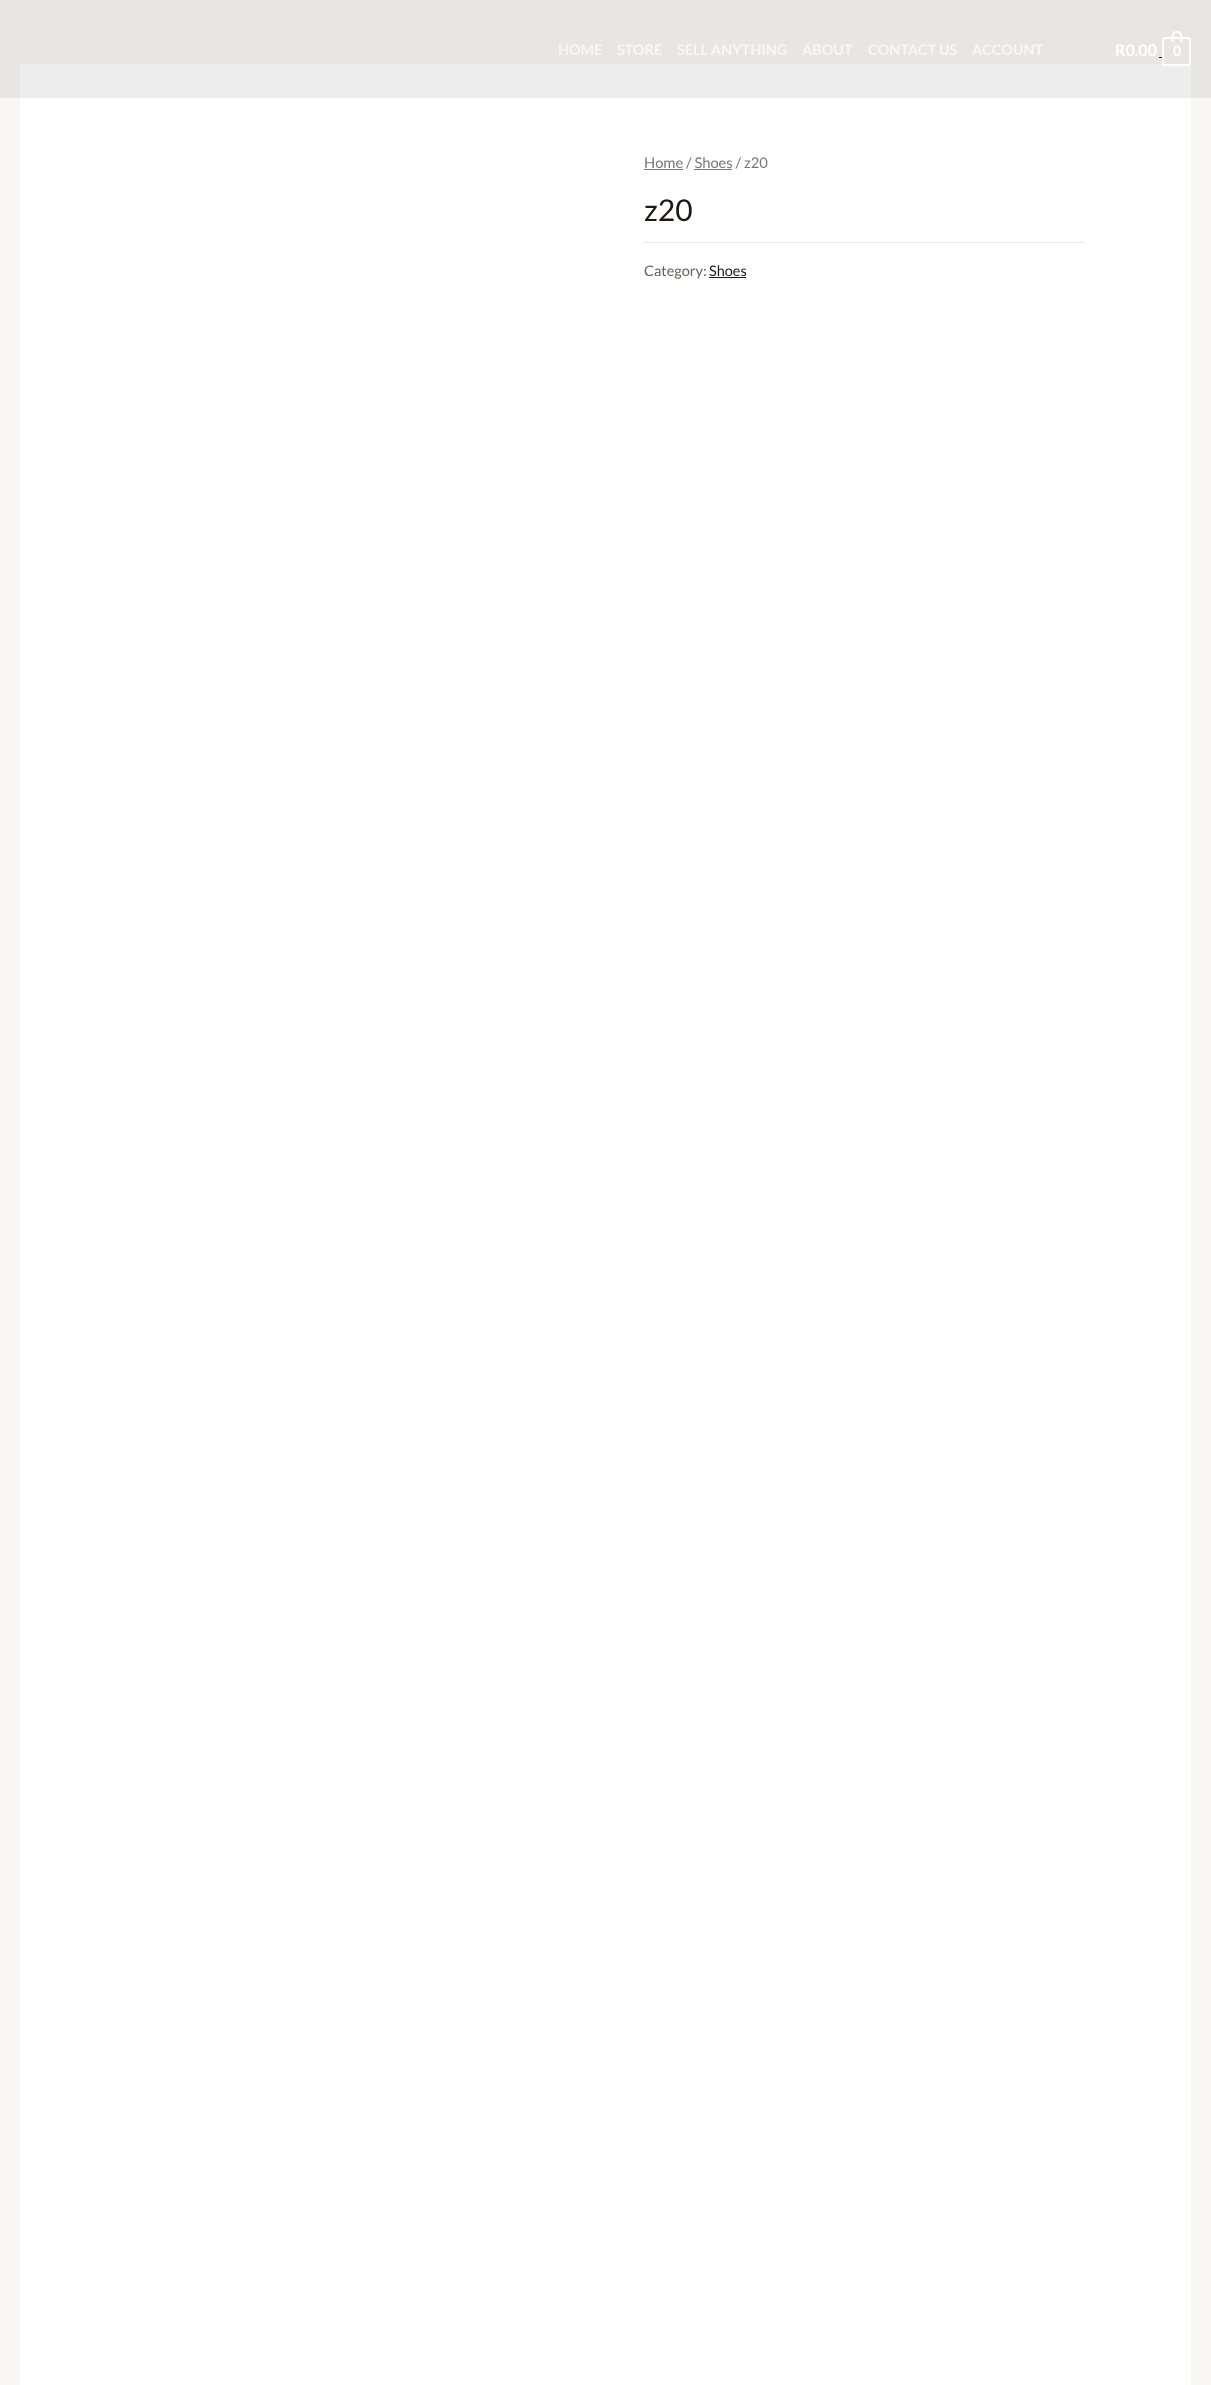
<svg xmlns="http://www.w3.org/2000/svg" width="1211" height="2385">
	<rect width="100%" height="100%" fill="#F8F7F3" />
	<rect x="0" y="0" width="1211" height="98" fill="#E7E6E2" />
	<g font-family="Lato" font-size="14.5" font-weight="700" fill="#F8F7F3">
		<text x="558" y="55">HOME</text>
		<text x="617" y="55">STORE</text>
		<text x="677" y="55">SELL ANYTHING</text>
		<text x="802" y="55">ABOUT</text>
		<text x="868" y="55">CONTACT US</text>
		<text x="972" y="55">ACCOUNT</text>
	</g>
	<text x="1115" y="56" font-family="Lato" font-size="16" font-weight="700" fill="#FFFFFF">R0.00</text>
	<rect x="20" y="64" width="1171" height="34" fill="#EDEDED" />
	<rect x="1163" y="38" width="27" height="27" rx="2" fill="none" stroke="#FFFFFF" stroke-width="2" />
	<path d="M1177 31C1183.5 31 1182.5 37.5 1182.5 42H1171.5C1171.5 37.5 1170.5 31 1177 31ZM1177 33C1181.5 33 1180.5 39 1180.5 42H1173.5C1173.5 39 1172.5 33 1177 33Z" fill="#FFFFFF" fill-rule="evenodd" />
	<text x="1173" y="56" font-family="Lato" font-size="14" font-weight="700" fill="#FFFFFF">0</text>
	<rect x="1159" y="57" width="3" height="1" fill="#1E1810" />
	<rect x="20" y="98" width="1171" height="2287" fill="#FFFFFF" />
	<text x="644" y="168" font-family="Lato" font-size="14.75" fill="#777777">Home / Shoes / z20</text>
	<rect x="644" y="169" width="39" height="1" fill="#777777" />
	<rect x="694" y="169" width="38" height="1" fill="#777777" />
	<text x="644" y="221" font-family="Lato" font-size="30" fill="#1E1810">z20</text>
	<rect x="644" y="242" width="440" height="1" fill="#EBEBEB" />
	<text x="644" y="276" font-family="Lato" font-size="14.5" fill="#62615C">Category:</text>
	<text x="709" y="276" font-family="Lato" font-size="14.5" fill="#1E1810">Shoes</text>
	<rect x="709" y="277" width="37" height="1" fill="#1E1810" />
</svg>
